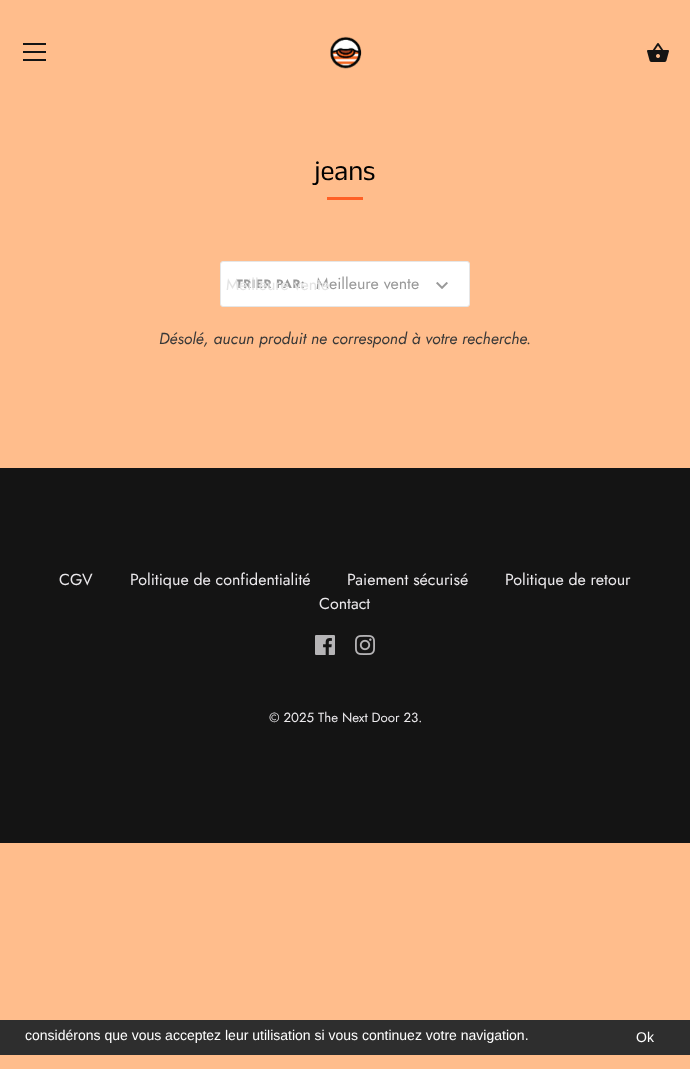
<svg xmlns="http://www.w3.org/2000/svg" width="690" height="1069">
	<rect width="100%" height="100%" fill="#FFBD8C" />
	<rect x="23" y="43" width="23" height="2" fill="#141414" />
	<rect x="23" y="51" width="23" height="2" fill="#141414" />
	<rect x="23" y="59" width="23" height="2" fill="#141414" />
	<image x="330" y="36" width="32" height="33" href="assets/img1.png" />
	<image x="647" y="43" width="22" height="19" href="assets/img2.png" />
	<text x="314" y="180" font-family="Anek Tamil" font-size="28" fill="#000000">jeans</text>
	<rect x="327" y="197" width="36" height="3" fill="#FF6025" />
	<rect x="220.5" y="261.5" width="249" height="45" rx="2.5" fill="#FFFFFF" stroke="#E6E6E6" />
	<text x="236" y="288" font-family="Jost" font-size="12" font-weight="700" letter-spacing="0.5" fill="#999999">TRIER PAR:</text>
	<text x="316" y="289" font-family="Jost" font-size="16" fill="#999999">Meilleure vente</text>
	<text x="226" y="290" font-family="Jost" font-size="16" fill="#E4E4E4">Meilleure vente</text>
	<image x="436" y="282" width="12" height="7" href="assets/img3.png" />
	<text x="159" y="344" font-family="Jost" font-size="16" font-style="italic" fill="#383838">Désolé, aucun produit ne correspond à votre recherche.</text>
	<rect x="0" y="468" width="690" height="375" fill="#141414" />
	<g font-family="Jost" font-size="16" fill="#EBE9EC">
		<text x="59" y="585">CGV</text>
		<text x="130" y="585">Politique de confidentialité</text>
		<text x="347" y="585">Paiement sécurisé</text>
		<text x="505" y="585">Politique de retour</text>
		<text x="319" y="609">Contact</text>
	</g>
	<image x="315" y="635" width="20" height="20" href="assets/img4.png" />
	<image x="355" y="635" width="20" height="20" href="assets/img5.png" />
	<text x="269" y="722" font-family="Jost" font-size="13.25" fill="#EBE9EC">© 2025 The Next Door 23.</text>
	<rect x="0" y="1020" width="690" height="35" fill="#2E2E2E" />
	<g font-family="Liberation Sans" font-size="14" fill="#FFFFFF">
		<text x="25" y="1040">considérons que vous acceptez leur utilisation si vous continuez votre navigation.</text>
		<text x="636" y="1042">Ok</text>
	</g>
</svg>
